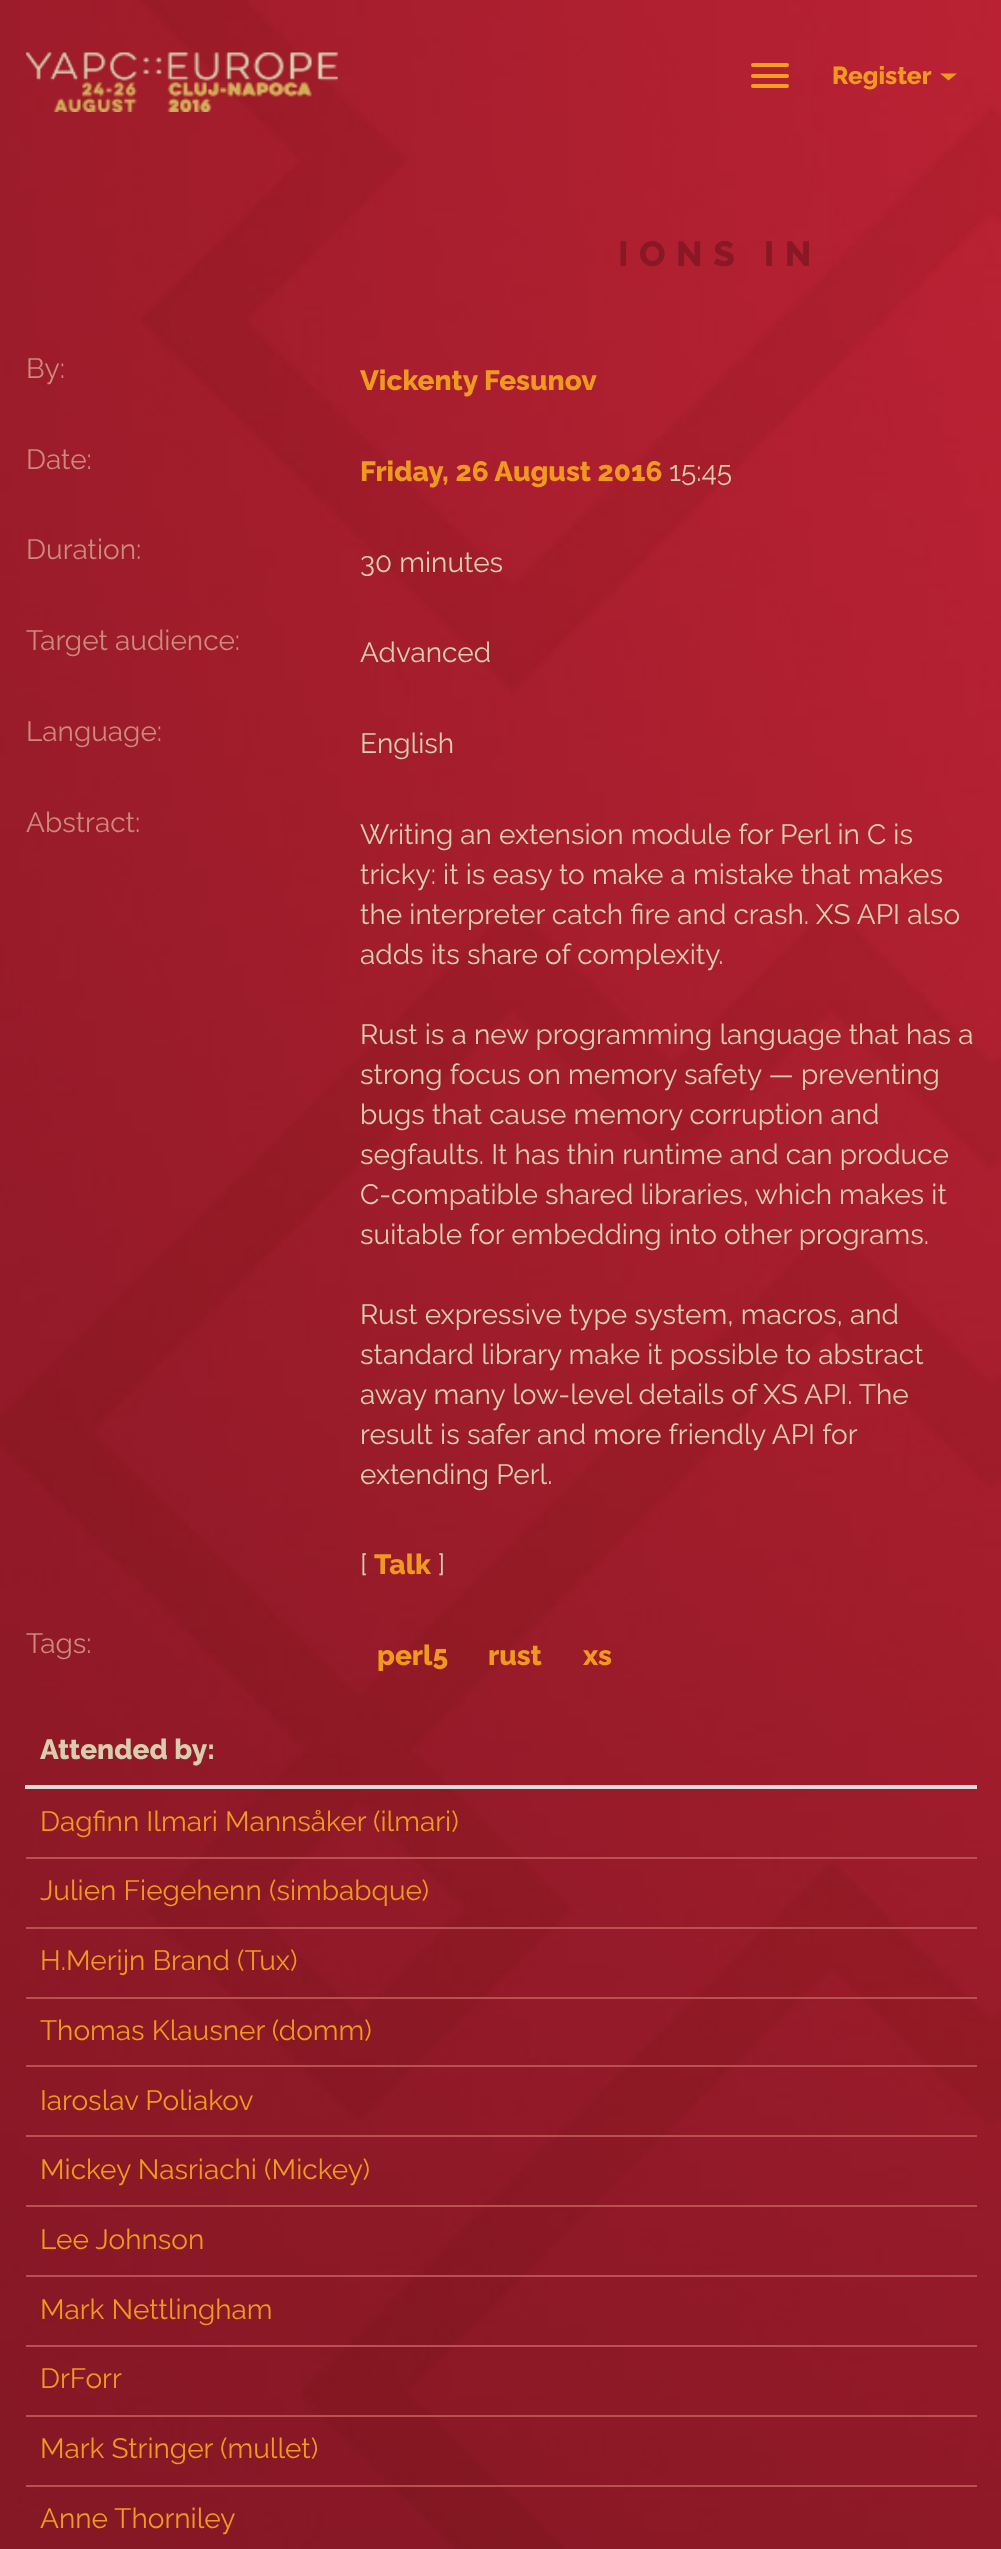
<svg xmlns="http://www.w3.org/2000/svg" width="1001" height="2549">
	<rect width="100%" height="100%" fill="#FFFFFF" />
	<image x="0" y="0" width="1001" height="2549" href="assets/img1.png" />
	<image x="26" y="52" width="312" height="60" href="assets/img2.png" />
	<rect x="751" y="63" width="38" height="4" rx="2" fill="#F2A01F" />
	<rect x="751" y="74" width="38" height="4" rx="2" fill="#F2A01F" />
	<rect x="751" y="84" width="38" height="4" rx="2" fill="#F2A01F" />
	<text x="832" y="84" font-family="Raleway" font-size="24.5" font-weight="800" fill="#EE9A20">Register</text>
	<path d="M940 73.5H957L948.5 80.5Z" fill="#EE9A20" />
	<text x="618" y="266" font-family="Raleway" font-size="35" font-weight="800" letter-spacing="10.5" fill="#891826">IONS IN</text>
	<text x="26" y="378" font-family="Raleway" font-size="28" fill="#CC8A7B">By:</text>
	<text x="360" y="390" font-family="Raleway" font-size="28" font-weight="800" fill="#EE9A20">Vickenty Fesunov</text>
	<text x="26" y="469" font-family="Raleway" font-size="28" fill="#CC8A7B">Date:</text>
	<text x="360" y="481" font-family="Raleway" font-size="28" font-weight="800" fill="#EE9A20">Friday, 26 August 2016</text>
	<text x="669" y="481" font-family="Raleway" font-size="28" fill="#D8CEAF">15:45</text>
	<text x="26" y="559" font-family="Raleway" font-size="28" fill="#CC8A7B">Duration:</text>
	<text x="360" y="572" font-family="Raleway" font-size="28" fill="#D8CEAF">30 minutes</text>
	<text x="26" y="650" font-family="Raleway" font-size="28" fill="#CC8A7B">Target audience:</text>
	<text x="360" y="662" font-family="Raleway" font-size="28" fill="#D8CEAF">Advanced</text>
	<text x="26" y="741" font-family="Raleway" font-size="28" fill="#CC8A7B">Language:</text>
	<text x="360" y="753" font-family="Raleway" font-size="28" fill="#D8CEAF">English</text>
	<text x="26" y="832" font-family="Raleway" font-size="28" fill="#CC8A7B">Abstract:</text>
	<g font-family="Raleway" font-size="28" fill="#D8CEAF">
		<text x="360" y="844">Writing an extension module for Perl in C is</text>
		<text x="360" y="884">tricky: it is easy to make a mistake that makes</text>
		<text x="360" y="924">the interpreter catch fire and crash. XS API also</text>
		<text x="360" y="964">adds its share of complexity.</text>
		<text x="360" y="1044">Rust is a new programming language that has a</text>
		<text x="360" y="1084">strong focus on memory safety — preventing</text>
		<text x="360" y="1124">bugs that cause memory corruption and</text>
		<text x="360" y="1164">segfaults. It has thin runtime and can produce</text>
		<text x="360" y="1204">C-compatible shared libraries, which makes it</text>
		<text x="360" y="1244">suitable for embedding into other programs.</text>
		<text x="360" y="1324">Rust expressive type system, macros, and</text>
		<text x="360" y="1364">standard library make it possible to abstract</text>
		<text x="360" y="1404">away many low-level details of XS API. The</text>
		<text x="360" y="1444">result is safer and more friendly API for</text>
		<text x="360" y="1484">extending Perl.</text>
		<text x="360" y="1574">[</text>
	</g>
	<text x="374" y="1574" font-family="Raleway" font-size="28" font-weight="800" fill="#EE9A20">Talk</text>
	<text x="438" y="1574" font-family="Raleway" font-size="28" fill="#D8CEAF">]</text>
	<text x="26" y="1653" font-family="Raleway" font-size="28" fill="#CC8A7B">Tags:</text>
	<g font-family="Raleway" font-size="28" font-weight="800" fill="#EE9A20">
		<text x="377" y="1665">perl5</text>
		<text x="488" y="1665">rust</text>
		<text x="583" y="1665">xs</text>
	</g>
	<rect x="25" y="1785" width="952" height="4" fill="#DDDDDD" />
	<text x="40" y="1759" font-family="Raleway" font-size="28" font-weight="800" fill="#D8CEAF">Attended by:</text>
	<text x="40" y="1831" font-family="Raleway" font-size="28" fill="#EE9A20">Dagfinn Ilmari Mannsåker (ilmari)</text>
	<rect x="26" y="1857" width="951" height="2" fill="#BB5053" />
	<text x="40" y="1900" font-family="Raleway" font-size="28" fill="#EE9A20">Julien Fiegehenn (simbabque)</text>
	<rect x="26" y="1927" width="951" height="2" fill="#BB5053" />
	<text x="40" y="1970" font-family="Raleway" font-size="28" fill="#EE9A20">H.Merijn Brand (Tux)</text>
	<rect x="26" y="1997" width="951" height="2" fill="#BB5053" />
	<text x="40" y="2040" font-family="Raleway" font-size="28" fill="#EE9A20">Thomas Klausner (domm)</text>
	<rect x="26" y="2065" width="951" height="2" fill="#BB5053" />
	<text x="40" y="2110" font-family="Raleway" font-size="28" fill="#EE9A20">Iaroslav Poliakov</text>
	<rect x="26" y="2135" width="951" height="2" fill="#BB5053" />
	<text x="40" y="2179" font-family="Raleway" font-size="28" fill="#EE9A20">Mickey Nasriachi (Mickey)</text>
	<rect x="26" y="2205" width="951" height="2" fill="#BB5053" />
	<text x="40" y="2249" font-family="Raleway" font-size="28" fill="#EE9A20">Lee Johnson</text>
	<rect x="26" y="2275" width="951" height="2" fill="#BB5053" />
	<text x="40" y="2319" font-family="Raleway" font-size="28" fill="#EE9A20">Mark Nettlingham</text>
	<rect x="26" y="2345" width="951" height="2" fill="#BB5053" />
	<text x="40" y="2388" font-family="Raleway" font-size="28" fill="#EE9A20">DrForr</text>
	<rect x="26" y="2415" width="951" height="2" fill="#BB5053" />
	<text x="40" y="2458" font-family="Raleway" font-size="28" fill="#EE9A20">Mark Stringer (mullet)</text>
	<rect x="26" y="2485" width="951" height="2" fill="#BB5053" />
	<text x="40" y="2528" font-family="Raleway" font-size="28" fill="#EE9A20">Anne Thorniley</text>
</svg>
